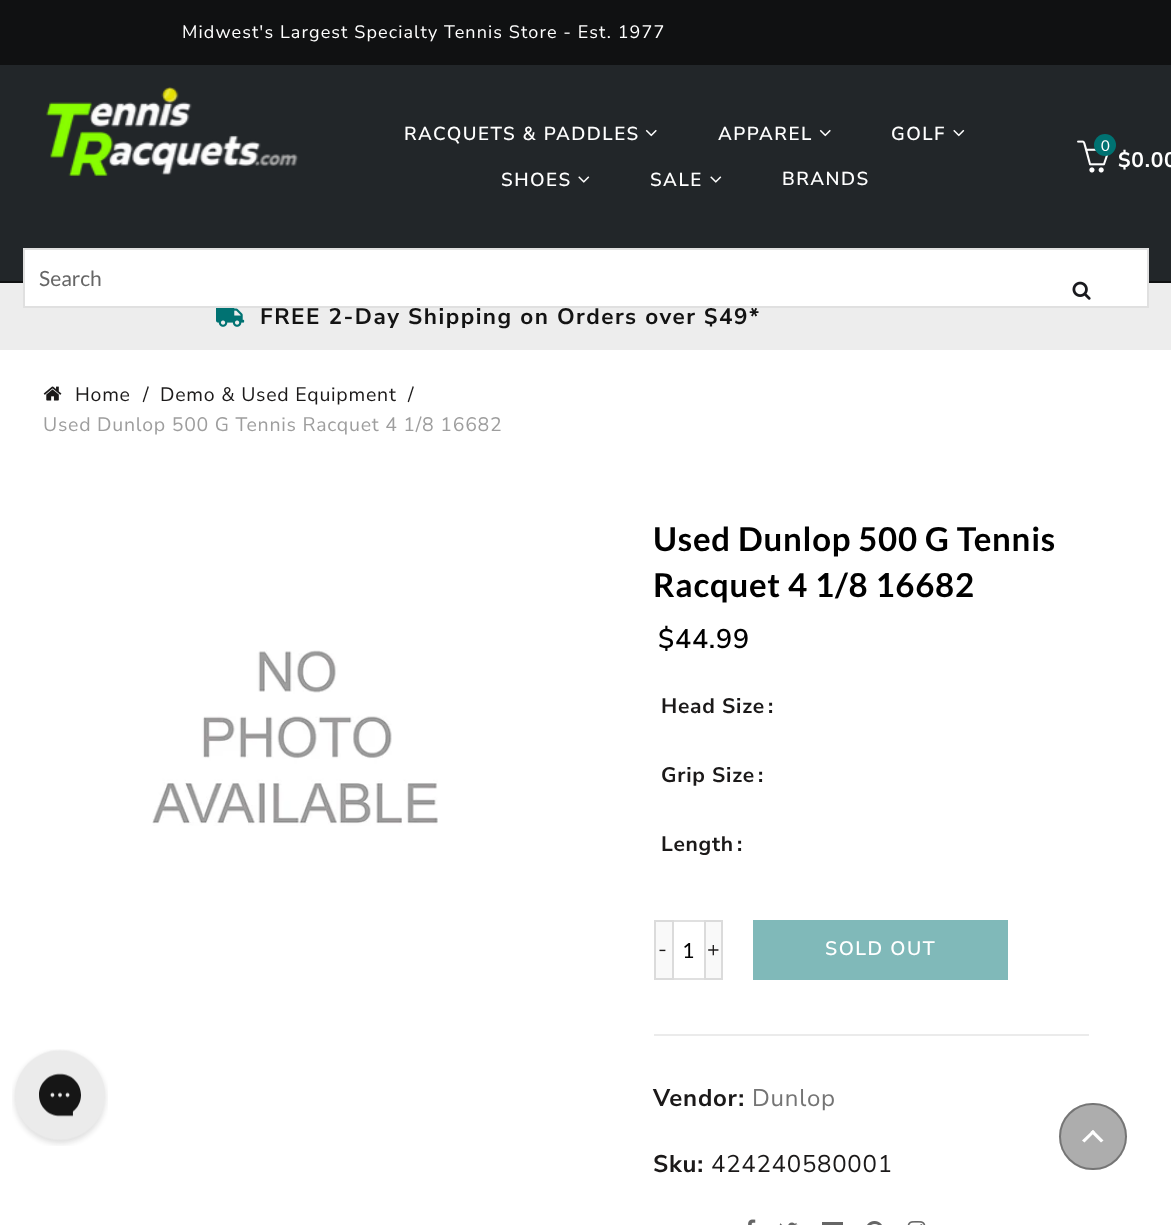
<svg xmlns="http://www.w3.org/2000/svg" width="1171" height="1225">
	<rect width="100%" height="100%" fill="#FFFFFF" />
	<rect x="0" y="0" width="1171" height="65" fill="#101112" />
	<text x="182" y="38" font-family="Nunito Sans" font-size="18" letter-spacing="1.12" fill="#FFFFFF">Midwest's Largest Specialty Tennis Store - Est. 1977</text>
	<rect x="0" y="65" width="1171" height="216" fill="#222629" />
	<rect x="0" y="281" width="1171" height="2" fill="#101112" />
	<image x="46" y="87" width="253" height="89" href="assets/img1.png" />
	<text x="404" y="140" font-family="Nunito Sans" font-size="18.75" font-weight="600" letter-spacing="1.5" fill="#FFFFFF">RACQUETS &amp; PADDLES</text>
	<image x="645" y="129" width="12" height="8" href="assets/img2.png" />
	<text x="718" y="140" font-family="Nunito Sans" font-size="18.75" font-weight="600" letter-spacing="1.5" fill="#FFFFFF">APPAREL</text>
	<image x="819" y="129" width="12" height="8" href="assets/img2.png" />
	<text x="891" y="140" font-family="Nunito Sans" font-size="18.75" font-weight="600" letter-spacing="1.5" fill="#FFFFFF">GOLF</text>
	<image x="953" y="129" width="12" height="8" href="assets/img3.png" />
	<text x="501" y="186" font-family="Nunito Sans" font-size="18.75" font-weight="600" letter-spacing="1.5" fill="#FFFFFF">SHOES</text>
	<image x="578" y="176" width="12" height="7" href="assets/img4.png" />
	<text x="650" y="186" font-family="Nunito Sans" font-size="18.75" font-weight="600" letter-spacing="1.5" fill="#FFFFFF">SALE</text>
	<image x="710" y="176" width="12" height="7" href="assets/img4.png" />
	<text x="782" y="185" font-family="Nunito Sans" font-size="18.75" font-weight="600" letter-spacing="1.5" fill="#FFFFFF">BRANDS</text>
	<image x="1077" y="140" width="32" height="33" href="assets/img5.png" />
	<circle cx="1105" cy="145" r="11" fill="#007272" />
	<text x="1101" y="151" font-family="Lato" font-size="15" letter-spacing="0.75" fill="#FFFFFF">0</text>
	<text x="1118" y="167" font-family="Nunito Sans" font-size="21" font-weight="700" letter-spacing="0.75" fill="#FFFFFF">$0.00</text>
	<rect x="0" y="283" width="1171" height="67" fill="#EDEDED" />
	<text x="260" y="324" font-family="Nunito Sans" font-size="22.5" font-weight="700" letter-spacing="1.5" fill="#131313">FREE 2-Day Shipping on Orders over $49*</text>
	<rect x="24" y="249" width="1124" height="58" fill="#FFFFFF" stroke="#E0E0E0" stroke-width="2" />
	<text x="39" y="286" font-family="Lato" font-size="21" fill="#666666">Search</text>
	<image x="1072" y="281" width="19" height="19" href="assets/img6.png" />
	<image x="216" y="308" width="29" height="19" href="assets/img7.png" />
	<image x="43" y="386" width="19" height="15" href="assets/img8.png" />
	<g font-family="Nunito Sans" font-size="19.5" letter-spacing="0.75" fill="#1B1919">
		<text x="75" y="401">Home</text>
		<text x="143" y="401">/</text>
		<text x="160" y="401">Demo &amp; Used Equipment</text>
		<text x="408" y="401">/</text>
	</g>
	<text x="43" y="431" font-family="Nunito Sans" font-size="19.5" letter-spacing="0.75" fill="#9E9E9E">Used Dunlop 500 G Tennis Racquet 4 1/8 16682</text>
	<image x="152" y="650" width="286" height="176" href="assets/img9.png" />
	<g font-family="Lato" font-size="33" font-weight="700" letter-spacing="0.75" fill="#000000">
		<text x="653" y="551">Used Dunlop 500 G Tennis</text>
		<text x="653" y="597">Racquet 4 1/8 16682</text>
	</g>
	<text x="658" y="648" font-family="Nunito Sans" font-size="27" font-weight="600" letter-spacing="0.75" fill="#000000">$44.99</text>
	<g font-family="Nunito Sans" font-size="21" font-weight="700" letter-spacing="0.75" fill="#1B1919">
		<text x="661" y="713">Head Size</text>
		<text x="768" y="713">:</text>
		<text x="661" y="782">Grip Size</text>
		<text x="758" y="782">:</text>
		<text x="661" y="851">Length</text>
		<text x="737" y="851">:</text>
	</g>
	<rect x="655" y="921" width="67" height="58" fill="none" stroke="#E0E0E0" stroke-width="2" />
	<rect x="655" y="921" width="18" height="58" fill="#F9F9F9" stroke="#DBDBDB" stroke-width="2" />
	<text x="658" y="956" font-family="Nunito Sans" font-size="21" letter-spacing="0.75" fill="#1B1919">-</text>
	<text x="682" y="958" font-family="Lato" font-size="21" fill="#000000">1</text>
	<rect x="705" y="921" width="17" height="58" fill="#F9F9F9" stroke="#DBDBDB" stroke-width="2" />
	<text x="707" y="956" font-family="Nunito Sans" font-size="21" letter-spacing="0.75" fill="#1B1919">+</text>
	<rect x="753" y="920" width="255" height="60" fill="#80B9B9" />
	<text x="825" y="955" font-family="Nunito Sans" font-size="19.5" font-weight="600" letter-spacing="1.5" fill="#FFFFFF">SOLD OUT</text>
	<rect x="654" y="1034" width="435" height="2" fill="#EBEBEB" />
	<text x="653" y="1106" font-family="Nunito Sans" font-size="24" font-weight="700" letter-spacing="0.75" fill="#1B1919">Vendor:</text>
	<text x="752" y="1106" font-family="Nunito Sans" font-size="24" letter-spacing="0.75" fill="#747474">Dunlop</text>
	<text x="653" y="1172" font-family="Nunito Sans" font-size="24" font-weight="700" letter-spacing="0.75" fill="#1B1919">Sku:</text>
	<text x="711" y="1172" font-family="Nunito Sans" font-size="24" letter-spacing="0.75" fill="#1B1919">424240580001</text>
	<image x="748" y="1219" width="8" height="6" href="assets/img10.png" />
	<image x="779" y="1222" width="19" height="3" href="assets/img11.png" />
	<rect x="822" y="1222" width="21" height="3" fill="#666666" />
	<image x="867" y="1221" width="15" height="4" href="assets/img12.png" />
	<image x="907" y="1221" width="19" height="4" href="assets/img13.png" />
	<image x="12" y="1049" width="96" height="97" href="assets/img14.png" />
	<rect x="1059" y="1103" width="68" height="67" rx="33.5" fill="#ADADAD" />
	<rect x="1060" y="1104" width="66" height="65" rx="32.5" fill="none" stroke="#000000" stroke-opacity="0.32" stroke-width="2" />
	<path d="M1084.5 1142.5L1082 1140.5L1093 1130L1095 1132Z" fill="#FFFFFF" />
	<path d="M1101 1142.5L1090.5 1132L1093 1130L1103.5 1140.5Z" fill="#FFFFFF" />
</svg>
